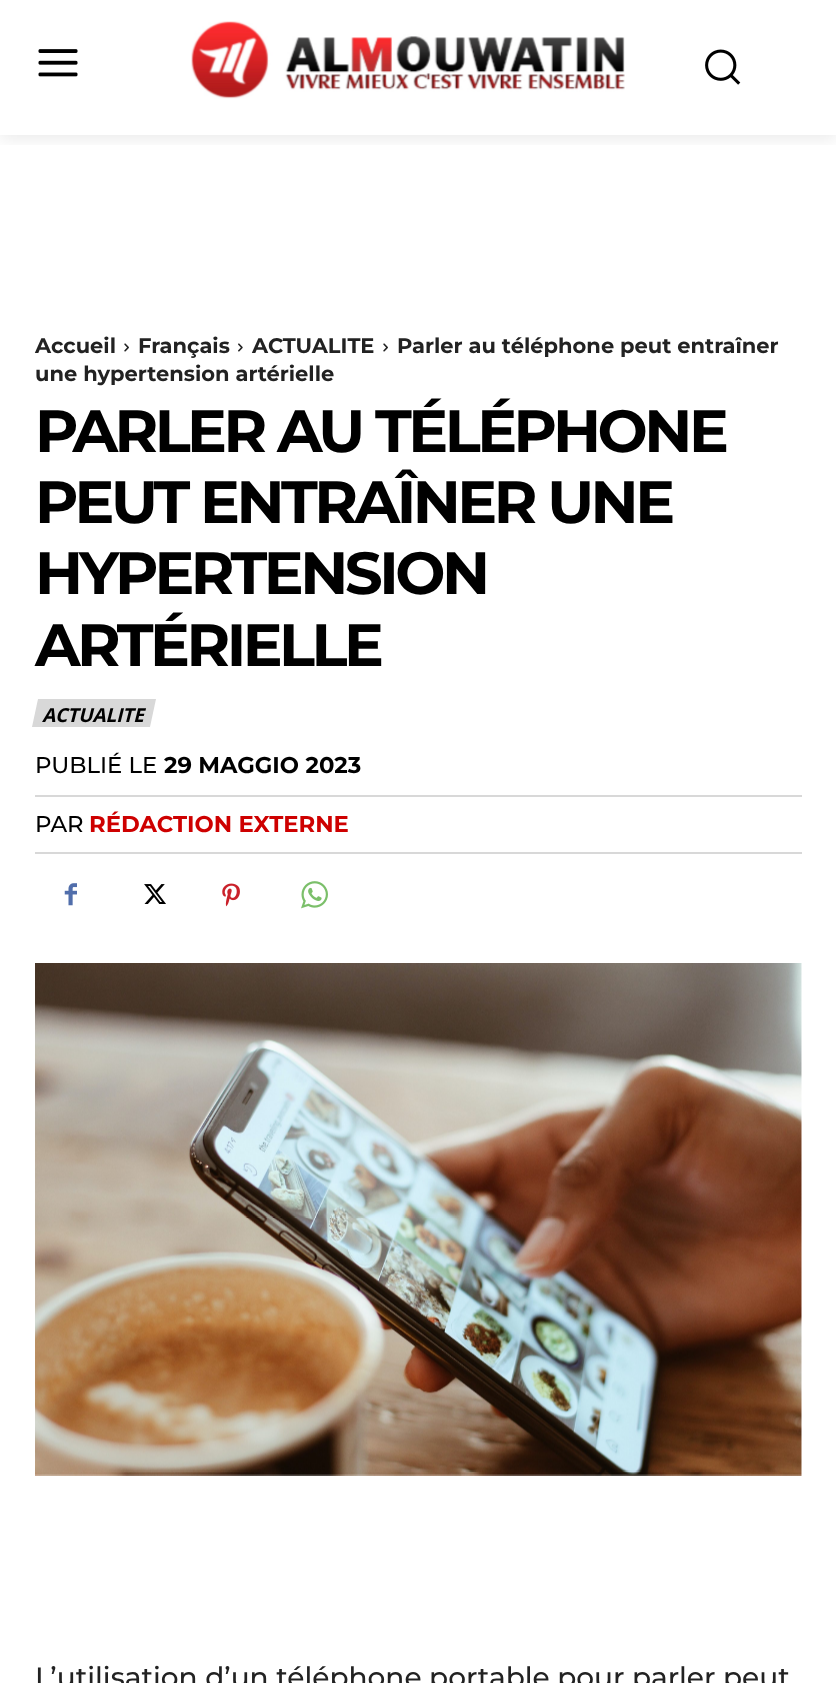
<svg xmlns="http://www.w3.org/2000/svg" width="836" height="1683">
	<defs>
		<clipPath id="clip1"><rect x="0" y="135" width="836" height="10" /></clipPath>
	</defs>
	<rect width="100%" height="100%" fill="#FFFFFF" />
	<image x="38" y="49" width="40" height="28" href="assets/img1.png" />
	<image x="191" y="21" width="434" height="78" href="assets/img2.png" />
	<image x="705" y="49" width="36" height="36" href="assets/img3.png" />
	<g clip-path="url(#clip1)">
		<rect x="0" y="4" width="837" height="134" fill="#000000" fill-opacity="0.09" filter="blur(9px)" />
	</g>
	<text x="35" y="353" font-family="Montserrat" font-size="21" font-weight="700" fill="#222222">Accueil</text>
	<image x="124" y="343" width="5" height="9" href="assets/img4.png" />
	<text x="138" y="353" font-family="Montserrat" font-size="21" font-weight="700" fill="#222222">Français</text>
	<image x="238" y="343" width="5" height="9" href="assets/img5.png" />
	<text x="252" y="353" font-family="Montserrat" font-size="21" font-weight="700" fill="#222222">ACTUALITE</text>
	<image x="383" y="343" width="5" height="9" href="assets/img4.png" />
	<g font-family="Montserrat" font-size="21" font-weight="700" fill="#222222">
		<text x="397" y="353">Parler au téléphone peut entraîner</text>
		<text x="35" y="381">une hypertension artérielle</text>
	</g>
	<g font-family="Montserrat" font-size="59.5" font-weight="700" letter-spacing="-3.5" fill="#000000">
		<text x="35" y="452">PARLER AU TÉLÉPHONE</text>
		<text x="35" y="523">PEUT ENTRAÎNER UNE</text>
		<text x="35" y="594">HYPERTENSION</text>
		<text x="35" y="666">ARTÉRIELLE</text>
	</g>
	<path d="M38 699H156L150 727H32Z" fill="#D8D8D8" />
	<text x="42" y="722" font-family="Open Sans" font-size="19.25" font-weight="700" font-style="italic" letter-spacing="-0.25" fill="#000000">ACTUALITE</text>
	<rect x="35" y="795" width="767" height="2" fill="#D8D8D8" />
	<text x="35" y="773" font-family="Montserrat" font-size="22.75" font-weight="500" fill="#000000">PUBLIÉ LE</text>
	<text x="164" y="773" font-family="Montserrat" font-size="22.75" font-weight="700" fill="#000000">29 MAGGIO 2023</text>
	<rect x="35" y="852" width="767" height="2" fill="#D8D8D8" />
	<text x="35" y="832" font-family="Montserrat" font-size="22.75" font-weight="500" fill="#000000">PAR</text>
	<text x="89" y="832" font-family="Montserrat" font-size="22.75" font-weight="700" fill="#CE0000">RÉDACTION EXTERNE</text>
	<image x="64" y="883" width="13" height="23" href="assets/img6.png" />
	<image x="144" y="884" width="22" height="20" href="assets/img7.png" />
	<image x="222" y="883" width="18" height="24" href="assets/img8.png" />
	<image x="301" y="881" width="27" height="28" href="assets/img9.png" />
	<image x="35" y="963" width="767" height="513" href="assets/img10.png" />
	<text x="35" y="1687" font-family="Montserrat" font-size="28" font-weight="500" fill="#222222">L’utilisation d’un téléphone portable pour parler peut</text>
</svg>
